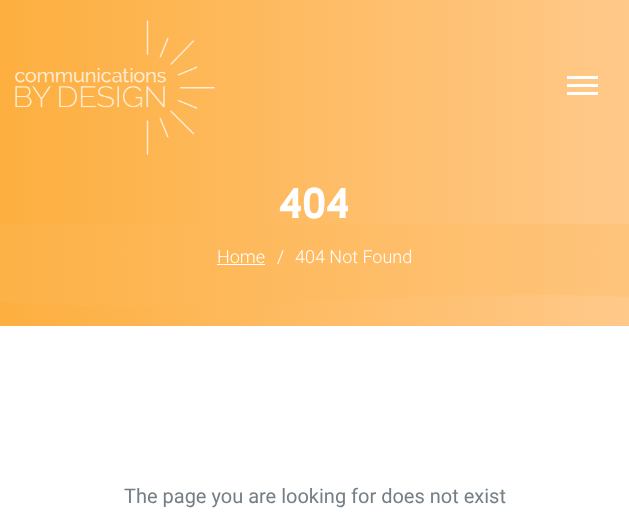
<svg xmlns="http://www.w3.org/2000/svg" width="629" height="513">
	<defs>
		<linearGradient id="g1" gradientUnits="userSpaceOnUse" x1="0" y1="163" x2="629" y2="163"><stop offset="0" stop-color="#FDAF3F" /><stop offset="1" stop-color="#FFC98A" /></linearGradient>
		<linearGradient id="g2" gradientUnits="userSpaceOnUse" x1="-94" y1="251" x2="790" y2="251"><stop offset="0" stop-color="#FDAF3F" /><stop offset="1" stop-color="#FFC98A" /></linearGradient>
	</defs>
	<rect width="100%" height="100%" fill="#FFFFFF" />
	<rect x="0" y="0" width="629" height="326" fill="url(#g1)" />
	<rect x="567" y="84" width="31" height="3" fill="#FFFFFF" />
	<rect x="567" y="76" width="31" height="3" fill="#FFFFFF" />
	<rect x="567" y="92" width="31" height="3" fill="#FFFFFF" />
	<image x="15" y="20" width="200" height="135" href="assets/img1.png" />
	<text x="279" y="218" font-family="Farro" font-size="40" font-weight="700" fill="#FFFFFF">404</text>
	<path d="M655 224H-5V302C-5 302 128 310 238 304C558 288 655 299 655 299Z" fill="url(#g2)" fill-rule="evenodd" />
	<text x="217" y="263" font-family="Roboto" font-size="18" font-weight="300" fill="#FFFFFF">Home</text>
	<rect x="217" y="264" width="48" height="1" fill="#FFFFFF" />
	<g font-family="Roboto" font-size="18" font-weight="300" fill="#FFFFFF">
		<text x="277" y="263">/</text>
		<text x="295" y="263">404 Not Found</text>
	</g>
	<text x="124" y="503" font-family="Roboto" font-size="20" fill="#747E84">The page you are looking for does not exist</text>
</svg>
